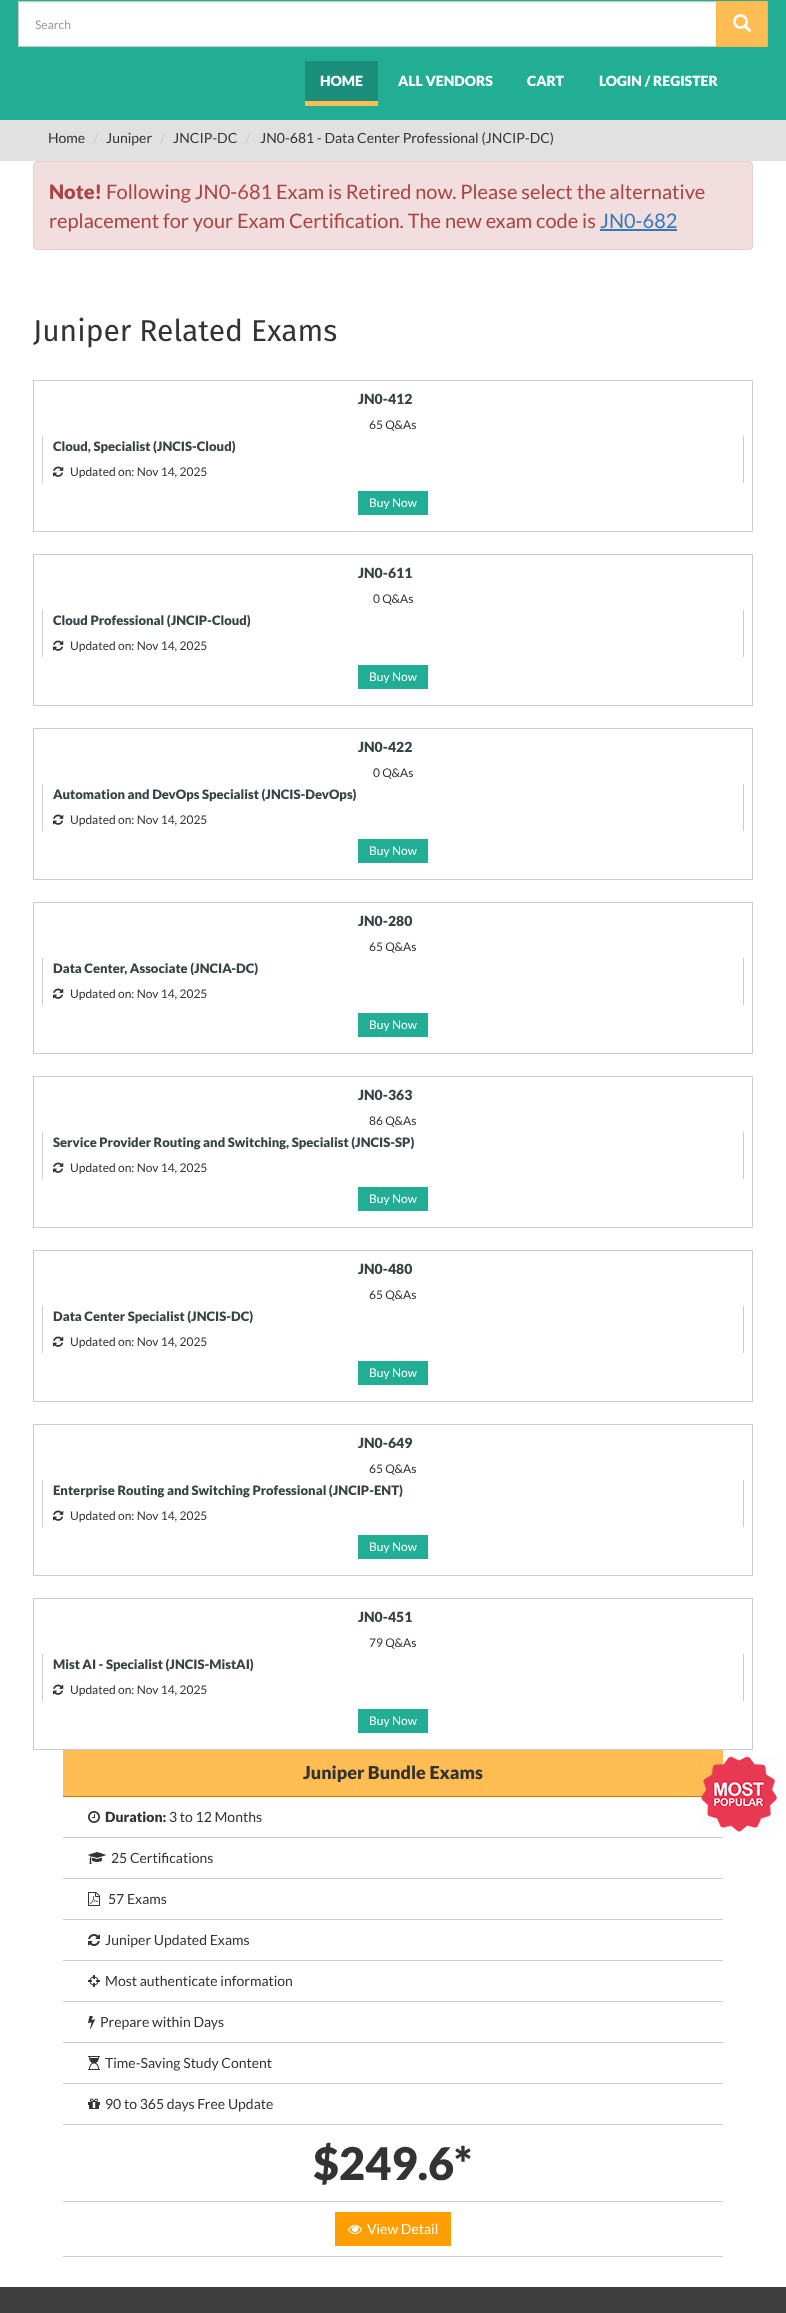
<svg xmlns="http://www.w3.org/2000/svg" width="786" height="2313">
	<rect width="100%" height="100%" fill="#FFFFFF" />
	<rect x="0" y="0" width="786" height="120" fill="#22AD95" />
	<rect x="19" y="3" width="697" height="43" fill="#FFFFFF" />
	<rect x="19" y="2" width="697" height="1" fill="#ECECEC" />
	<rect x="18.5" y="1.5" width="698" height="45" fill="none" stroke="#CCCCCC" />
	<text x="35" y="29" font-family="Lato" font-size="12" fill="#999999">Search</text>
	<rect x="716.5" y="1.5" width="51" height="45" fill="#FFBD53" stroke="#F9B444" />
	<image x="733" y="14" width="19" height="19" href="assets/img1.png" />
	<rect x="305" y="61" width="73" height="40" fill="#1B8F7B" />
	<rect x="305" y="101" width="73" height="5" fill="#FFBD53" />
	<g font-family="Lato" font-size="14" font-weight="900" fill="#FFFFFF">
		<text x="320" y="86">HOME</text>
		<text x="398" y="86">ALL VENDORS</text>
		<text x="527" y="86">CART</text>
		<text x="599" y="86">LOGIN / REGISTER</text>
	</g>
	<rect x="0" y="120" width="786" height="41" fill="#E1E1E1" />
	<text x="48" y="143" font-family="Lato" font-size="14" fill="#333333">Home</text>
	<text x="93" y="143" font-family="Lato" font-size="14" fill="#CCCCCC">/</text>
	<text x="106" y="143" font-family="Lato" font-size="14" fill="#333333">Juniper</text>
	<text x="160" y="143" font-family="Lato" font-size="14" fill="#CCCCCC">/</text>
	<text x="173" y="143" font-family="Lato" font-size="14" fill="#333333">JNCIP-DC</text>
	<text x="245" y="143" font-family="Lato" font-size="14" fill="#CCCCCC">/</text>
	<text x="260" y="143" font-family="Lato" font-size="14" fill="#333333">JN0-681 - Data Center Professional (JNCIP-DC)</text>
	<rect x="33.5" y="161.5" width="719" height="88" rx="3.5" fill="#F2DEDE" stroke="#EBCCD1" />
	<text x="49" y="199" font-family="Lato" font-size="20" font-weight="900" fill="#A94442">Note!</text>
	<g font-family="Lato" font-size="20" fill="#A94442">
		<text x="106" y="199">Following JN0-681 Exam is Retired now. Please select the alternative</text>
		<text x="49" y="228">replacement for your Exam Certification. The new exam code is</text>
	</g>
	<text x="600" y="228" font-family="Lato" font-size="20" fill="#337AB7">JN0-682</text>
	<rect x="600" y="229" width="77" height="2" fill="#337AB7" />
	<text x="33" y="341" font-family="Fira Sans" font-size="30" fill="#333333">Juniper Related Exams</text>
	<rect x="33.5" y="380.5" width="719" height="151" fill="none" stroke="#CCCCCC" />
	<text x="358" y="404" font-family="Lato" font-size="14" font-weight="900" fill="#364347">JN0-412</text>
	<text x="369" y="429" font-family="Lato" font-size="12" fill="#333333">65 Q&amp;As</text>
	<rect x="743" y="436" width="1" height="47" fill="#CCCCCC" />
	<rect x="42" y="436" width="1" height="47" fill="#CCCCCC" />
	<text x="53" y="451" font-family="Lato" font-size="13" font-weight="900" fill="#364347">Cloud, Specialist (JNCIS-Cloud)</text>
	<image x="53" y="466" width="11" height="11" href="assets/img2.png" />
	<text x="70" y="476" font-family="Lato" font-size="12" fill="#333333">Updated on: Nov 14, 2025</text>
	<rect x="358" y="491" width="70" height="24" fill="#22AD95" />
	<text x="369" y="507" font-family="Lato" font-size="12" fill="#FFFFFF">Buy Now</text>
	<rect x="33.5" y="554.5" width="719" height="151" fill="none" stroke="#CCCCCC" />
	<text x="358" y="578" font-family="Lato" font-size="14" font-weight="900" fill="#364347">JN0-611</text>
	<text x="373" y="603" font-family="Lato" font-size="12" fill="#333333">0 Q&amp;As</text>
	<rect x="743" y="610" width="1" height="47" fill="#CCCCCC" />
	<rect x="42" y="610" width="1" height="47" fill="#CCCCCC" />
	<text x="53" y="625" font-family="Lato" font-size="13" font-weight="900" fill="#364347">Cloud Professional (JNCIP-Cloud)</text>
	<image x="53" y="640" width="11" height="11" href="assets/img2.png" />
	<text x="70" y="650" font-family="Lato" font-size="12" fill="#333333">Updated on: Nov 14, 2025</text>
	<rect x="358" y="665" width="70" height="24" fill="#22AD95" />
	<text x="369" y="681" font-family="Lato" font-size="12" fill="#FFFFFF">Buy Now</text>
	<rect x="33.5" y="728.5" width="719" height="151" fill="none" stroke="#CCCCCC" />
	<text x="358" y="752" font-family="Lato" font-size="14" font-weight="900" fill="#364347">JN0-422</text>
	<text x="373" y="777" font-family="Lato" font-size="12" fill="#333333">0 Q&amp;As</text>
	<rect x="743" y="784" width="1" height="47" fill="#CCCCCC" />
	<rect x="42" y="784" width="1" height="47" fill="#CCCCCC" />
	<text x="53" y="799" font-family="Lato" font-size="13" font-weight="900" fill="#364347">Automation and DevOps Specialist (JNCIS-DevOps)</text>
	<image x="53" y="814" width="11" height="11" href="assets/img2.png" />
	<text x="70" y="824" font-family="Lato" font-size="12" fill="#333333">Updated on: Nov 14, 2025</text>
	<rect x="358" y="839" width="70" height="24" fill="#22AD95" />
	<text x="369" y="855" font-family="Lato" font-size="12" fill="#FFFFFF">Buy Now</text>
	<rect x="33.5" y="902.5" width="719" height="151" fill="none" stroke="#CCCCCC" />
	<text x="358" y="926" font-family="Lato" font-size="14" font-weight="900" fill="#364347">JN0-280</text>
	<text x="369" y="951" font-family="Lato" font-size="12" fill="#333333">65 Q&amp;As</text>
	<rect x="743" y="958" width="1" height="47" fill="#CCCCCC" />
	<rect x="42" y="958" width="1" height="47" fill="#CCCCCC" />
	<text x="53" y="973" font-family="Lato" font-size="13" font-weight="900" fill="#364347">Data Center, Associate (JNCIA-DC)</text>
	<image x="53" y="988" width="11" height="11" href="assets/img2.png" />
	<text x="70" y="998" font-family="Lato" font-size="12" fill="#333333">Updated on: Nov 14, 2025</text>
	<rect x="358" y="1013" width="70" height="24" fill="#22AD95" />
	<text x="369" y="1029" font-family="Lato" font-size="12" fill="#FFFFFF">Buy Now</text>
	<rect x="33.5" y="1076.5" width="719" height="151" fill="none" stroke="#CCCCCC" />
	<text x="358" y="1100" font-family="Lato" font-size="14" font-weight="900" fill="#364347">JN0-363</text>
	<text x="369" y="1125" font-family="Lato" font-size="12" fill="#333333">86 Q&amp;As</text>
	<rect x="743" y="1132" width="1" height="47" fill="#CCCCCC" />
	<rect x="42" y="1132" width="1" height="47" fill="#CCCCCC" />
	<text x="53" y="1147" font-family="Lato" font-size="13" font-weight="900" fill="#364347">Service Provider Routing and Switching, Specialist (JNCIS-SP)</text>
	<image x="53" y="1162" width="11" height="11" href="assets/img2.png" />
	<text x="70" y="1172" font-family="Lato" font-size="12" fill="#333333">Updated on: Nov 14, 2025</text>
	<rect x="358" y="1187" width="70" height="24" fill="#22AD95" />
	<text x="369" y="1203" font-family="Lato" font-size="12" fill="#FFFFFF">Buy Now</text>
	<rect x="33.5" y="1250.5" width="719" height="151" fill="none" stroke="#CCCCCC" />
	<text x="358" y="1274" font-family="Lato" font-size="14" font-weight="900" fill="#364347">JN0-480</text>
	<text x="369" y="1299" font-family="Lato" font-size="12" fill="#333333">65 Q&amp;As</text>
	<rect x="743" y="1306" width="1" height="47" fill="#CCCCCC" />
	<rect x="42" y="1306" width="1" height="47" fill="#CCCCCC" />
	<text x="53" y="1321" font-family="Lato" font-size="13" font-weight="900" fill="#364347">Data Center Specialist (JNCIS-DC)</text>
	<image x="53" y="1336" width="11" height="11" href="assets/img2.png" />
	<text x="70" y="1346" font-family="Lato" font-size="12" fill="#333333">Updated on: Nov 14, 2025</text>
	<rect x="358" y="1361" width="70" height="24" fill="#22AD95" />
	<text x="369" y="1377" font-family="Lato" font-size="12" fill="#FFFFFF">Buy Now</text>
	<rect x="33.5" y="1424.5" width="719" height="151" fill="none" stroke="#CCCCCC" />
	<text x="358" y="1448" font-family="Lato" font-size="14" font-weight="900" fill="#364347">JN0-649</text>
	<text x="369" y="1473" font-family="Lato" font-size="12" fill="#333333">65 Q&amp;As</text>
	<rect x="743" y="1480" width="1" height="47" fill="#CCCCCC" />
	<rect x="42" y="1480" width="1" height="47" fill="#CCCCCC" />
	<text x="53" y="1495" font-family="Lato" font-size="13" font-weight="900" fill="#364347">Enterprise Routing and Switching Professional (JNCIP-ENT)</text>
	<image x="53" y="1510" width="11" height="11" href="assets/img2.png" />
	<text x="70" y="1520" font-family="Lato" font-size="12" fill="#333333">Updated on: Nov 14, 2025</text>
	<rect x="358" y="1535" width="70" height="24" fill="#22AD95" />
	<text x="369" y="1551" font-family="Lato" font-size="12" fill="#FFFFFF">Buy Now</text>
	<rect x="33.5" y="1598.5" width="719" height="151" fill="none" stroke="#CCCCCC" />
	<text x="358" y="1622" font-family="Lato" font-size="14" font-weight="900" fill="#364347">JN0-451</text>
	<text x="369" y="1647" font-family="Lato" font-size="12" fill="#333333">79 Q&amp;As</text>
	<rect x="743" y="1654" width="1" height="47" fill="#CCCCCC" />
	<rect x="42" y="1654" width="1" height="47" fill="#CCCCCC" />
	<text x="53" y="1669" font-family="Lato" font-size="13" font-weight="900" fill="#364347">Mist AI - Specialist (JNCIS-MistAI)</text>
	<image x="53" y="1684" width="11" height="11" href="assets/img2.png" />
	<text x="70" y="1694" font-family="Lato" font-size="12" fill="#333333">Updated on: Nov 14, 2025</text>
	<rect x="358" y="1709" width="70" height="24" fill="#22AD95" />
	<text x="369" y="1725" font-family="Lato" font-size="12" fill="#FFFFFF">Buy Now</text>
	<rect x="63" y="1750" width="660" height="46" fill="#FFBD53" />
	<rect x="63" y="1796" width="640" height="1" fill="#C87D03" />
	<text x="303" y="1779" font-family="Lato" font-size="18" font-weight="900" fill="#333333">Juniper Bundle Exams</text>
	<image x="698" y="1754" width="82" height="80" href="assets/img3.png" />
	<rect x="63" y="1837" width="660" height="1" fill="#CCCCCC" />
	<image x="88" y="1811" width="12" height="12" href="assets/img4.png" />
	<text x="105" y="1822" font-family="Lato" font-size="14" font-weight="900" fill="#333333">Duration:</text>
	<text x="169" y="1822" font-family="Lato" font-size="14" fill="#333333">3 to 12 Months</text>
	<rect x="63" y="1878" width="660" height="1" fill="#CCCCCC" />
	<image x="88" y="1852" width="18" height="12" href="assets/img5.png" />
	<text x="111" y="1863" font-family="Lato" font-size="14" fill="#333333">25 Certifications</text>
	<rect x="63" y="1919" width="660" height="1" fill="#CCCCCC" />
	<image x="88" y="1892" width="12" height="14" href="assets/img6.png" />
	<text x="108" y="1904" font-family="Lato" font-size="14" fill="#333333">57 Exams</text>
	<rect x="63" y="1960" width="660" height="1" fill="#CCCCCC" />
	<image x="88" y="1934" width="12" height="12" href="assets/img7.png" />
	<text x="105" y="1945" font-family="Lato" font-size="14" fill="#333333">Juniper Updated Exams</text>
	<rect x="63" y="2001" width="660" height="1" fill="#CCCCCC" />
	<image x="88" y="1975" width="12" height="12" href="assets/img8.png" />
	<text x="105" y="1986" font-family="Lato" font-size="14" fill="#333333">Most authenticate information</text>
	<rect x="63" y="2042" width="660" height="1" fill="#CCCCCC" />
	<image x="88" y="2016" width="7" height="13" href="assets/img9.png" />
	<text x="100" y="2027" font-family="Lato" font-size="14" fill="#333333">Prepare within Days</text>
	<rect x="63" y="2083" width="660" height="1" fill="#CCCCCC" />
	<image x="88" y="2056" width="12" height="14" href="assets/img10.png" />
	<text x="105" y="2068" font-family="Lato" font-size="14" fill="#333333">Time-Saving Study Content</text>
	<rect x="63" y="2124" width="660" height="1" fill="#CCCCCC" />
	<image x="88" y="2098" width="12" height="11" href="assets/img11.png" />
	<text x="105" y="2109" font-family="Lato" font-size="14" fill="#333333">90 to 365 days Free Update</text>
	<rect x="63" y="2201" width="660" height="1" fill="#CCCCCC" />
	<text x="313" y="2180" font-family="Lato" font-size="45" font-weight="900" fill="#333333">$249.6*</text>
	<rect x="63" y="2256" width="660" height="1" fill="#CCCCCC" />
	<rect x="335" y="2212" width="116" height="34" fill="#FF9E00" />
	<image x="348" y="2225" width="14" height="9" href="assets/img12.png" />
	<text x="367" y="2234" font-family="Lato" font-size="14" fill="#FFFFFF">View Detail</text>
	<rect x="0" y="2287" width="786" height="26" fill="#3E3E3E" />
</svg>
